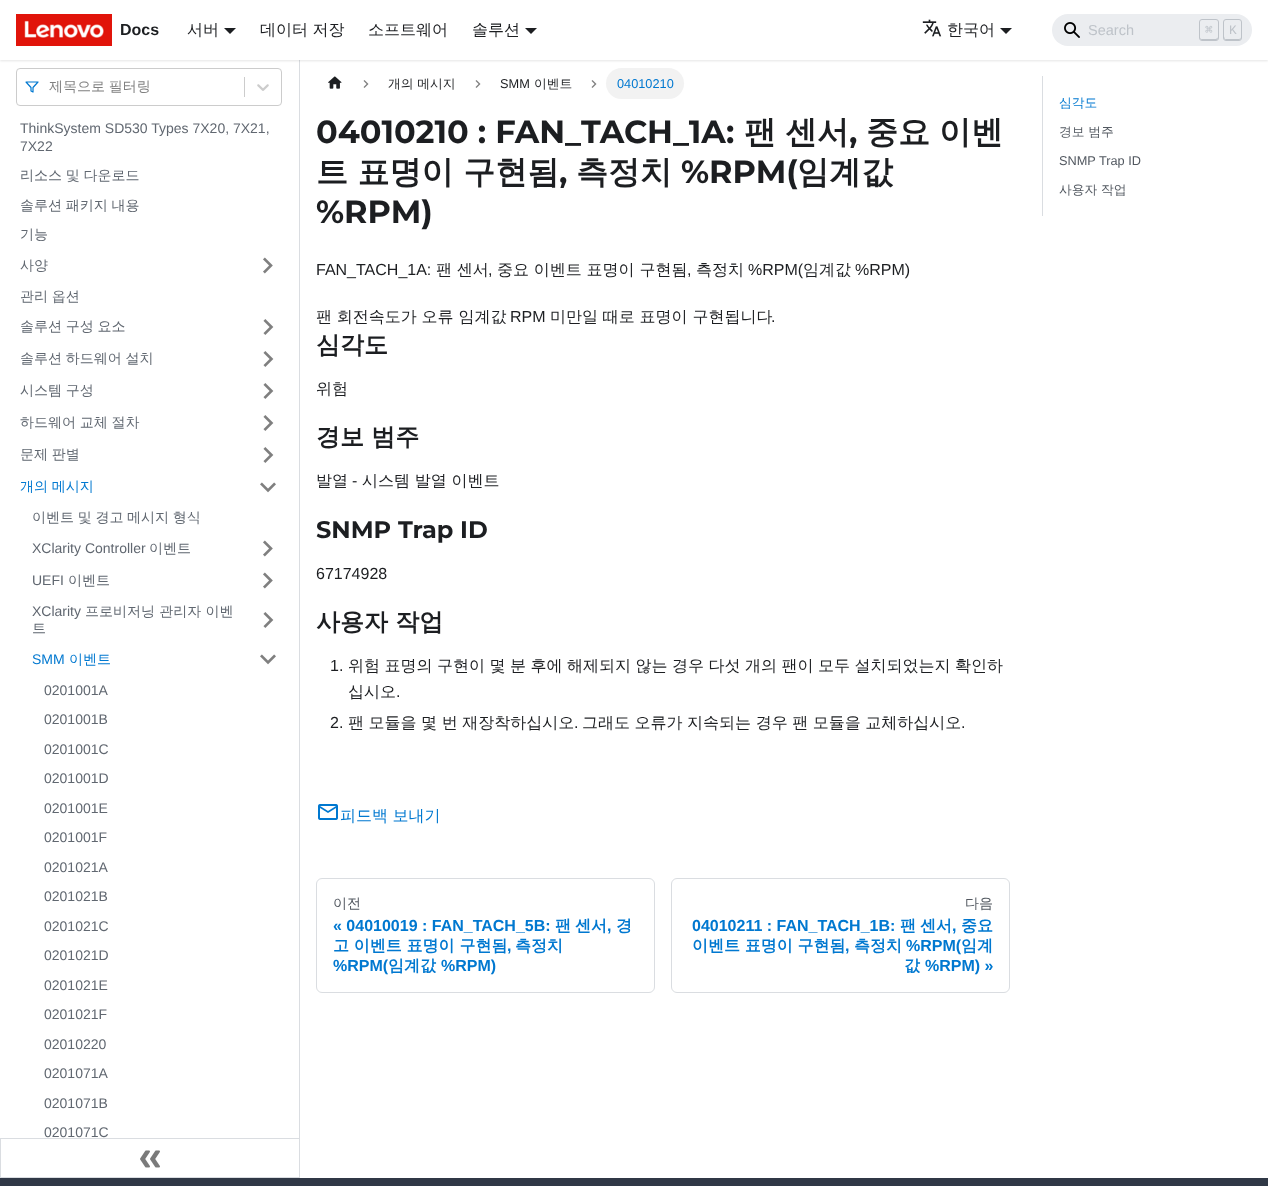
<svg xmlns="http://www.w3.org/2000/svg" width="1268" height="1186">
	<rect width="100%" height="100%" fill="#FFFFFF" />
	<rect x="299" y="60" width="1" height="1078" fill="#DADDE1" />
	<rect x="0" y="1" width="1268" height="60" fill="#000000" fill-opacity="0.1" filter="blur(1px)" />
	<rect x="0" y="0" width="1268" height="60" fill="#FFFFFF" />
	<image x="16" y="14" width="96" height="32" href="assets/img1.png" />
	<text x="120" y="35" font-family="Liberation Sans" font-size="16" font-weight="700" fill="#1C1E21">Docs</text>
	<text x="187" y="35" font-family="WenQuanYi Zen Hei" font-size="16" font-weight="500" fill="#1C1E21">서버</text>
	<path d="M224 28H236L230 34Z" fill="#1C1E21" />
	<g font-family="WenQuanYi Zen Hei" font-size="16" font-weight="500" fill="#1C1E21">
		<text x="260" y="35" word-spacing="-0.3">데이터 저장</text>
		<text x="368" y="35">소프트웨어</text>
		<text x="472" y="35">솔루션</text>
	</g>
	<path d="M525 28H537L531 34Z" fill="#1C1E21" />
	<image x="922" y="19" width="20" height="18" href="assets/img2.png" />
	<text x="947" y="35" font-family="WenQuanYi Zen Hei" font-size="16" font-weight="500" fill="#1C1E21">한국어</text>
	<path d="M1000 28H1012L1006 34Z" fill="#1C1E21" />
	<rect x="1052" y="14" width="200" height="32" rx="16" fill="#EBEDF0" />
	<image x="1064" y="22" width="16" height="16" href="assets/img3.png" />
	<text x="1088" y="35" font-family="Liberation Sans" font-size="14.5" fill="#BEC3C9">Search</text>
	<path d="M1218 37C1217.5 38.5 1216.5 39 1214 39H1202C1201 39 1200.5 38.5 1200 37.5C1200 40.5 1202.5 40 1204.5 40H1213.5C1216.5 40 1218 40.5 1218 37Z" fill="#BEC3C9" />
	<rect x="1199.5" y="19.5" width="19" height="21" rx="2.5" fill="none" stroke="#BEC3C9" />
	<text x="1205" y="34" font-family="DejaVu Sans Mono" font-size="12.75" fill="#BEC3C9">⌘</text>
	<path d="M1241 37C1241 38 1240 39 1239 39H1225L1224 36.5C1224 40 1225 40 1228 40H1237C1240 40 1241 40 1241 37Z" fill="#BEC3C9" />
	<rect x="1223.5" y="19.5" width="18" height="21" rx="2.5" fill="none" stroke="#BEC3C9" />
	<text x="1229" y="34" font-family="Liberation Mono" font-size="12.75" fill="#BEC3C9">K</text>
	<rect x="16.5" y="68.5" width="265" height="37" rx="3.5" fill="none" stroke="#CCCCCC" />
	<path d="M38 82H26L31 87.5V91L33 92V87.5Z" fill="none" stroke="#0078D0" stroke-width="1.2" stroke-linecap="round" stroke-linejoin="round" />
	<text x="49" y="91" word-spacing="-0.5" font-family="WenQuanYi Zen Hei" font-size="14" font-weight="500" fill="#808080">제목으로 필터링</text>
	<rect x="244" y="77" width="1" height="20" fill="#CCCCCC" />
	<image x="257" y="84" width="12" height="7" href="assets/img4.png" />
	<g font-family="Liberation Sans" font-size="14" fill="#606770">
		<text x="20" y="133">ThinkSystem SD530 Types 7X20, 7X21,</text>
		<text x="20" y="151">7X22</text>
	</g>
	<g font-family="WenQuanYi Zen Hei" font-size="14" font-weight="500" fill="#606770">
		<text x="20" y="180" word-spacing="-0.5">리소스 및 다운로드</text>
		<text x="20" y="210" word-spacing="-0.5">솔루션 패키지 내용</text>
		<text x="20" y="239">기능</text>
		<text x="20" y="270">사양</text>
	</g>
	<image x="263" y="257" width="10" height="17" href="assets/img5.png" />
	<g font-family="WenQuanYi Zen Hei" font-size="14" font-weight="500" fill="#606770">
		<text x="20" y="301" word-spacing="-0.5">관리 옵션</text>
		<text x="20" y="331" word-spacing="-0.5">솔루션 구성 요소</text>
	</g>
	<image x="263" y="319" width="11" height="16" href="assets/img6.png" />
	<text x="20" y="363" word-spacing="-0.5" font-family="WenQuanYi Zen Hei" font-size="14" font-weight="500" fill="#606770">솔루션 하드웨어 설치</text>
	<image x="263" y="351" width="11" height="16" href="assets/img6.png" />
	<text x="20" y="395" word-spacing="-0.5" font-family="WenQuanYi Zen Hei" font-size="14" font-weight="500" fill="#606770">시스템 구성</text>
	<image x="263" y="383" width="11" height="16" href="assets/img6.png" />
	<text x="20" y="427" word-spacing="-0.5" font-family="WenQuanYi Zen Hei" font-size="14" font-weight="500" fill="#606770">하드웨어 교체 절차</text>
	<image x="263" y="415" width="11" height="16" href="assets/img6.png" />
	<text x="20" y="459" word-spacing="-0.5" font-family="WenQuanYi Zen Hei" font-size="14" font-weight="500" fill="#606770">문제 판별</text>
	<image x="263" y="447" width="11" height="16" href="assets/img6.png" />
	<text x="20" y="491" word-spacing="-0.5" font-family="WenQuanYi Zen Hei" font-size="14" font-weight="500" fill="#0078D0">개의 메시지</text>
	<image x="260" y="482" width="16" height="11" href="assets/img7.png" />
	<text x="32" y="522" word-spacing="-0.5" font-family="WenQuanYi Zen Hei" font-size="14" font-weight="500" fill="#606770">이벤트 및 경고 메시지 형식</text>
	<text x="32" y="553" font-family="Liberation Sans" font-size="14" fill="#606770">XClarity Controller</text>
	<text x="149" y="553" font-family="WenQuanYi Zen Hei" font-size="14" font-weight="500" fill="#606770">이벤트</text>
	<image x="263" y="540" width="10" height="17" href="assets/img5.png" />
	<text x="32" y="585" font-family="Liberation Sans" font-size="14" fill="#606770">UEFI</text>
	<text x="68" y="585" font-family="WenQuanYi Zen Hei" font-size="14" font-weight="500" fill="#606770">이벤트</text>
	<image x="263" y="572" width="10" height="17" href="assets/img5.png" />
	<text x="32" y="616" font-family="Liberation Sans" font-size="14" fill="#606770">XClarity</text>
	<g font-family="WenQuanYi Zen Hei" font-size="14" font-weight="500" fill="#606770">
		<text x="85" y="616">프로비저닝 관리자 이벤</text>
		<text x="32" y="633">트</text>
	</g>
	<image x="263" y="612" width="11" height="16" href="assets/img6.png" />
	<text x="32" y="664" font-family="Liberation Sans" font-size="14" fill="#0078D0">SMM</text>
	<text x="69" y="664" font-family="WenQuanYi Zen Hei" font-size="14" font-weight="500" fill="#0078D0">이벤트</text>
	<image x="260" y="654" width="16" height="11" href="assets/img7.png" />
	<g font-family="Liberation Sans" font-size="14" fill="#606770">
		<text x="44" y="695">0201001A</text>
		<text x="44" y="724">0201001B</text>
		<text x="44" y="754">0201001C</text>
		<text x="44" y="783">0201001D</text>
		<text x="44" y="813">0201001E</text>
		<text x="44" y="842">0201001F</text>
		<text x="44" y="872">0201021A</text>
		<text x="44" y="901">0201021B</text>
		<text x="44" y="931">0201021C</text>
		<text x="44" y="960">0201021D</text>
		<text x="44" y="990">0201021E</text>
		<text x="44" y="1019">0201021F</text>
		<text x="44" y="1049">02010220</text>
		<text x="44" y="1078">0201071A</text>
		<text x="44" y="1108">0201071B</text>
		<text x="44" y="1137">0201071C</text>
	</g>
	<rect x="0.5" y="1138.5" width="299" height="39" fill="none" stroke="#DADDE1" />
	<image x="140" y="1150" width="20" height="18" href="assets/img8.png" />
	<image x="328" y="76" width="14" height="13" href="assets/img9.png" />
	<image x="363" y="80" width="6" height="8" href="assets/img10.png" />
	<text x="388" y="88" font-family="WenQuanYi Zen Hei" font-size="12.75" font-weight="500" fill="#1C1E21">개의 메시지</text>
	<image x="475" y="80" width="6" height="8" href="assets/img10.png" />
	<text x="500" y="88" font-family="Liberation Sans" font-size="12.75" fill="#1C1E21">SMM</text>
	<text x="534" y="88" font-family="WenQuanYi Zen Hei" font-size="12.75" font-weight="500" fill="#1C1E21">이벤트</text>
	<image x="591" y="80" width="6" height="8" href="assets/img10.png" />
	<rect x="606" y="68" width="78" height="31" rx="15.5" fill="#F2F2F2" />
	<text x="617" y="88" font-family="Liberation Sans" font-size="12.75" fill="#0078D0">04010210</text>
	<text x="316" y="143" font-family="Montserrat" font-size="32" font-weight="700" fill="#1C1E21">04010210 : FAN_TACH_1A:</text>
	<g font-family="WenQuanYi Zen Hei" font-size="32" font-weight="700" fill="#1C1E21">
		<text x="744" y="143">팬</text>
		<text x="785" y="143">센서</text>
	</g>
	<text x="849" y="143" font-family="Montserrat" font-size="32" font-weight="700" fill="#1C1E21">,</text>
	<g font-family="WenQuanYi Zen Hei" font-size="32" font-weight="700" fill="#1C1E21">
		<text x="866" y="143">중요</text>
		<text x="939" y="143">이벤</text>
		<text x="316" y="183">트 표명이 구현됨</text>
	</g>
	<text x="559" y="183" font-family="Montserrat" font-size="32" font-weight="700" fill="#1C1E21">,</text>
	<text x="576" y="183" font-family="WenQuanYi Zen Hei" font-size="32" font-weight="700" fill="#1C1E21">측정치</text>
	<text x="681" y="183" font-family="Montserrat" font-size="32" font-weight="700" fill="#1C1E21">%RPM(</text>
	<text x="797" y="183" font-family="WenQuanYi Zen Hei" font-size="32" font-weight="700" fill="#1C1E21">임계값</text>
	<text x="316" y="223" font-family="Montserrat" font-size="32" font-weight="700" fill="#1C1E21">%RPM)</text>
	<text x="316" y="275" font-family="Liberation Sans" font-size="16" fill="#1C1E21">FAN_TACH_1A:</text>
	<text x="436" y="275" font-family="WenQuanYi Zen Hei" font-size="16" font-weight="500" fill="#1C1E21">팬 센서</text>
	<text x="488" y="275" font-family="Liberation Sans" font-size="16" fill="#1C1E21">,</text>
	<text x="497" y="275" font-family="WenQuanYi Zen Hei" font-size="16" font-weight="500" fill="#1C1E21">중요 이벤트 표명이 구현됨</text>
	<text x="687" y="275" font-family="Liberation Sans" font-size="16" fill="#1C1E21">,</text>
	<text x="696" y="275" font-family="WenQuanYi Zen Hei" font-size="16" font-weight="500" fill="#1C1E21">측정치</text>
	<text x="748" y="275" font-family="Liberation Sans" font-size="16" fill="#1C1E21">%RPM(</text>
	<text x="803" y="275" font-family="WenQuanYi Zen Hei" font-size="16" font-weight="500" fill="#1C1E21">임계값</text>
	<text x="855" y="275" font-family="Liberation Sans" font-size="16" fill="#1C1E21">%RPM)</text>
	<text x="316" y="322" font-family="WenQuanYi Zen Hei" font-size="16" font-weight="500" fill="#1C1E21">팬 회전속도가 오류 임계값</text>
	<text x="510" y="322" font-family="Liberation Sans" font-size="16" fill="#1C1E21">RPM</text>
	<text x="550" y="322" font-family="WenQuanYi Zen Hei" font-size="16" font-weight="500" fill="#1C1E21">미만일 때로 표명이 구현됩니다</text>
	<text x="771" y="322" font-family="Liberation Sans" font-size="16" fill="#1C1E21">.</text>
	<text x="316" y="353" font-family="WenQuanYi Zen Hei" font-size="24" font-weight="700" fill="#1C1E21">심각도</text>
	<text x="316" y="394" font-family="WenQuanYi Zen Hei" font-size="16" font-weight="500" fill="#1C1E21">위험</text>
	<text x="316" y="445" font-family="WenQuanYi Zen Hei" font-size="24" font-weight="700" fill="#1C1E21">경보 범주</text>
	<text x="316" y="486" font-family="WenQuanYi Zen Hei" font-size="16" font-weight="500" fill="#1C1E21">발열</text>
	<text x="352" y="486" font-family="Liberation Sans" font-size="16" fill="#1C1E21">-</text>
	<text x="362" y="486" font-family="WenQuanYi Zen Hei" font-size="16" font-weight="500" fill="#1C1E21">시스템 발열 이벤트</text>
	<text x="316" y="538" font-family="Montserrat" font-size="24" font-weight="700" fill="#1C1E21">SNMP Trap ID</text>
	<text x="316" y="579" font-family="Liberation Sans" font-size="16" fill="#1C1E21">67174928</text>
	<text x="316" y="630" font-family="WenQuanYi Zen Hei" font-size="24" font-weight="700" fill="#1C1E21">사용자 작업</text>
	<text x="330" y="671" font-family="Liberation Sans" font-size="16" fill="#1C1E21">1.</text>
	<g font-family="WenQuanYi Zen Hei" font-size="16" font-weight="500" fill="#1C1E21">
		<text x="348" y="671" word-spacing="-0.3">위험 표명의 구현이 몇 분 후에 해제되지 않는 경우 다섯 개의 팬이 모두 설치되었는지 확인하</text>
		<text x="348" y="697">십시오</text>
	</g>
	<g font-family="Liberation Sans" font-size="16" fill="#1C1E21">
		<text x="396" y="697">.</text>
		<text x="330" y="728">2.</text>
	</g>
	<text x="348" y="728" word-spacing="-0.25" font-family="WenQuanYi Zen Hei" font-size="16" font-weight="500" fill="#1C1E21">팬 모듈을 몇 번 재장착하십시오</text>
	<text x="574" y="728" font-family="Liberation Sans" font-size="16" fill="#1C1E21">.</text>
	<text x="582" y="728" word-spacing="-0.25" font-family="WenQuanYi Zen Hei" font-size="16" font-weight="500" fill="#1C1E21">그래도 오류가 지속되는 경우 팬 모듈을 교체하십시오</text>
	<text x="961" y="728" font-family="Liberation Sans" font-size="16" fill="#1C1E21">.</text>
	<image x="318" y="804" width="20" height="16" href="assets/img11.png" />
	<text x="340" y="821" word-spacing="-0.3" font-family="WenQuanYi Zen Hei" font-size="16" font-weight="500" fill="#0078D0">피드백 보내기</text>
	<rect x="316.5" y="878.5" width="338" height="114" rx="5.5" fill="none" stroke="#DADDE1" />
	<text x="333" y="908" font-family="WenQuanYi Zen Hei" font-size="14" font-weight="500" fill="#525860">이전</text>
	<text x="333" y="931" font-family="Liberation Sans" font-size="16" font-weight="700" fill="#0078D0">« 04010019 : FAN_TACH_5B:</text>
	<g font-family="WenQuanYi Zen Hei" font-size="16" font-weight="700" fill="#0078D0">
		<text x="555" y="931">팬</text>
		<text x="575" y="931">센서</text>
	</g>
	<text x="607" y="931" font-family="Liberation Sans" font-size="16" font-weight="700" fill="#0078D0">,</text>
	<g font-family="WenQuanYi Zen Hei" font-size="16" font-weight="700" fill="#0078D0">
		<text x="616" y="931">경</text>
		<text x="333" y="951">고 이벤트 표명이 구현됨</text>
	</g>
	<text x="507" y="951" font-family="Liberation Sans" font-size="16" font-weight="700" fill="#0078D0">,</text>
	<text x="515" y="951" font-family="WenQuanYi Zen Hei" font-size="16" font-weight="700" fill="#0078D0">측정치</text>
	<text x="333" y="971" font-family="Liberation Sans" font-size="16" font-weight="700" fill="#0078D0">%RPM(</text>
	<text x="388" y="971" font-family="WenQuanYi Zen Hei" font-size="16" font-weight="700" fill="#0078D0">임계값</text>
	<text x="441" y="971" font-family="Liberation Sans" font-size="16" font-weight="700" fill="#0078D0">%RPM)</text>
	<rect x="671.5" y="878.5" width="338" height="114" rx="5.5" fill="none" stroke="#DADDE1" />
	<text x="965" y="908" font-family="WenQuanYi Zen Hei" font-size="14" font-weight="500" fill="#525860">다음</text>
	<text x="692" y="931" font-family="Liberation Sans" font-size="16" font-weight="700" fill="#0078D0">04010211 : FAN_TACH_1B:</text>
	<g font-family="WenQuanYi Zen Hei" font-size="16" font-weight="700" fill="#0078D0">
		<text x="900" y="931">팬</text>
		<text x="920" y="931">센서</text>
	</g>
	<text x="952" y="931" font-family="Liberation Sans" font-size="16" font-weight="700" fill="#0078D0">,</text>
	<g font-family="WenQuanYi Zen Hei" font-size="16" font-weight="700" fill="#0078D0">
		<text x="961" y="931">중요</text>
		<text x="692" y="951">이벤트 표명이 구현됨</text>
	</g>
	<text x="845" y="951" font-family="Liberation Sans" font-size="16" font-weight="700" fill="#0078D0">,</text>
	<text x="854" y="951" font-family="WenQuanYi Zen Hei" font-size="16" font-weight="700" fill="#0078D0">측정치</text>
	<text x="906" y="951" font-family="Liberation Sans" font-size="16" font-weight="700" fill="#0078D0">%RPM(</text>
	<g font-family="WenQuanYi Zen Hei" font-size="16" font-weight="700" fill="#0078D0">
		<text x="961" y="951">임계</text>
		<text x="904" y="971">값</text>
	</g>
	<text x="925" y="971" font-family="Liberation Sans" font-size="16" font-weight="700" fill="#0078D0">%RPM) »</text>
	<rect x="1042" y="76" width="1" height="140" fill="#DADDE1" />
	<text x="1059" y="107" font-family="WenQuanYi Zen Hei" font-size="12.75" font-weight="500" fill="#0078D0">심각도</text>
	<text x="1059" y="136" font-family="WenQuanYi Zen Hei" font-size="12.75" font-weight="500" fill="#525860">경보 범주</text>
	<text x="1059" y="165" font-family="Liberation Sans" font-size="12.75" fill="#525860">SNMP Trap ID</text>
	<text x="1059" y="194" font-family="WenQuanYi Zen Hei" font-size="12.75" font-weight="500" fill="#525860">사용자 작업</text>
	<rect x="0" y="1178" width="1268" height="8" fill="#303846" />
</svg>
